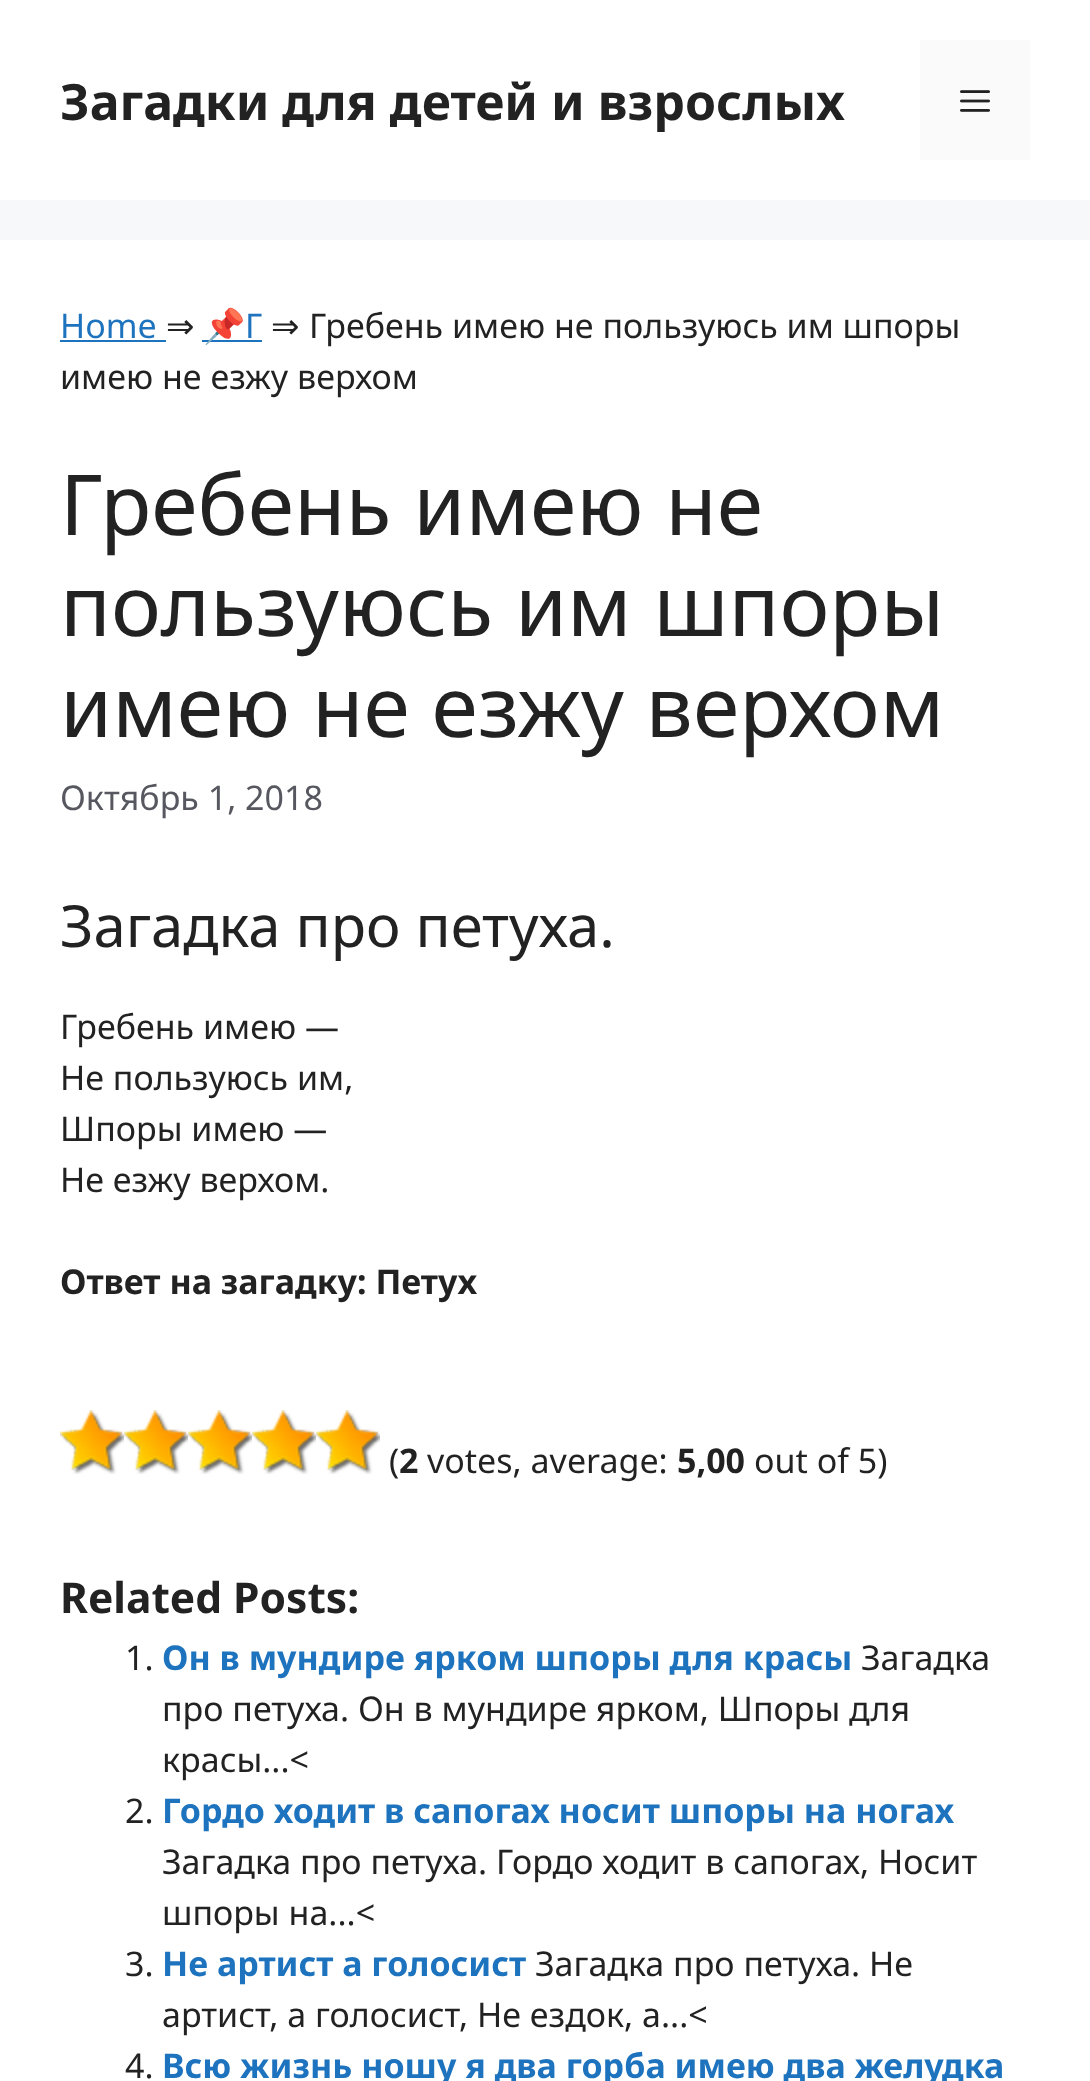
<svg xmlns="http://www.w3.org/2000/svg" width="1090" height="2081">
	<rect width="100%" height="100%" fill="#F7F8F9" />
	<rect x="0" y="0" width="1090" height="200" fill="#FFFFFF" />
	<text x="60" y="120" font-family="Noto Sans" font-size="50" font-weight="700" fill="#222222">Загадки для детей и взрослых</text>
	<rect x="920" y="40" width="110" height="120" fill="#FAFAFA" />
	<image x="960" y="90" width="30" height="22" href="assets/img1.png" />
	<rect x="0" y="240" width="1090" height="1841" fill="#FFFFFF" />
	<text x="60" y="338" font-family="Noto Sans" font-size="34" fill="#1E73BE">Home</text>
	<text x="166" y="338" font-family="DejaVu Sans" font-size="34" fill="#222222">⇒</text>
	<rect x="60" y="340" width="106" height="2" fill="#1E73BE" />
	<rect x="202" y="340" width="60" height="2" fill="#1E73BE" />
	<text x="203" y="338" font-family="Noto Color Emoji" font-size="34" fill="#1E73BE">📌</text>
	<text x="245" y="338" font-family="Noto Sans" font-size="34" fill="#1E73BE">Г</text>
	<text x="271" y="338" font-family="DejaVu Sans" font-size="34" fill="#222222">⇒</text>
	<g font-family="Noto Sans" font-size="34" fill="#222222">
		<text x="309" y="338">Гребень имею не пользуюсь им шпоры</text>
		<text x="60" y="389">имею не езжу верхом</text>
	</g>
	<g font-family="Noto Sans" font-size="84" fill="#222222">
		<text x="60" y="535">Гребень имею не</text>
		<text x="60" y="636">пользуюсь им шпоры</text>
		<text x="60" y="737">имею не езжу верхом</text>
	</g>
	<text x="60" y="810" font-family="Noto Sans" font-size="34" fill="#575760">Октябрь 1, 2018</text>
	<text x="60" y="947" font-family="Noto Sans" font-size="58" fill="#222222">Загадка про петуха.</text>
	<g font-family="Noto Sans" font-size="34" fill="#222222">
		<text x="60" y="1039">Гребень имею —</text>
		<text x="60" y="1090">Не пользуюсь им,</text>
		<text x="60" y="1141">Шпоры имею —</text>
		<text x="60" y="1192">Не езжу верхом.</text>
	</g>
	<text x="60" y="1294" font-family="Noto Sans" font-size="34" font-weight="700" fill="#222222">Ответ на загадку: Петух</text>
	<image x="60" y="1410" width="64" height="64" href="assets/img2.png" />
	<image x="124" y="1410" width="64" height="64" href="assets/img2.png" />
	<image x="188" y="1410" width="64" height="64" href="assets/img2.png" />
	<image x="252" y="1410" width="64" height="64" href="assets/img2.png" />
	<image x="316" y="1410" width="64" height="64" href="assets/img2.png" />
	<text x="389" y="1473" font-family="Noto Sans" font-size="34" fill="#222222">(</text>
	<text x="399" y="1473" font-family="Noto Sans" font-size="34" font-weight="700" fill="#222222">2</text>
	<text x="427" y="1473" font-family="Noto Sans" font-size="34" fill="#222222">votes, average:</text>
	<text x="677" y="1473" font-family="Noto Sans" font-size="34" font-weight="700" fill="#222222">5,00</text>
	<text x="754" y="1473" font-family="Noto Sans" font-size="34" fill="#222222">out of 5)</text>
	<text x="60" y="1613" font-family="Noto Sans" font-size="42.5" font-weight="700" fill="#222222">Related Posts:</text>
	<text x="125" y="1670" font-family="Noto Sans" font-size="34" fill="#222222">1.</text>
	<text x="162" y="1670" font-family="Noto Sans" font-size="34" font-weight="700" fill="#1E73BE">Он в мундире ярком шпоры для красы</text>
	<g font-family="Noto Sans" font-size="34" fill="#222222">
		<text x="861" y="1670">Загадка</text>
		<text x="162" y="1721">про петуха. Он в мундире ярком, Шпоры для</text>
		<text x="162" y="1772">красы...&lt;</text>
		<text x="125" y="1823">2.</text>
	</g>
	<text x="162" y="1823" font-family="Noto Sans" font-size="34" font-weight="700" fill="#1E73BE">Гордо ходит в сапогах носит шпоры на ногах</text>
	<g font-family="Noto Sans" font-size="34" fill="#222222">
		<text x="162" y="1874">Загадка про петуха. Гордо ходит в сапогах, Носит</text>
		<text x="162" y="1925">шпоры на...&lt;</text>
		<text x="125" y="1976">3.</text>
	</g>
	<text x="162" y="1976" font-family="Noto Sans" font-size="34" font-weight="700" fill="#1E73BE">Не артист а голосист</text>
	<g font-family="Noto Sans" font-size="34" fill="#222222">
		<text x="535" y="1976">Загадка про петуха. Не</text>
		<text x="162" y="2027">артист, а голосист, Не ездок, а...&lt;</text>
		<text x="125" y="2078">4.</text>
	</g>
	<text x="162" y="2078" font-family="Noto Sans" font-size="34" font-weight="700" fill="#1E73BE">Всю жизнь ношу я два горба имею два желудка</text>
</svg>
